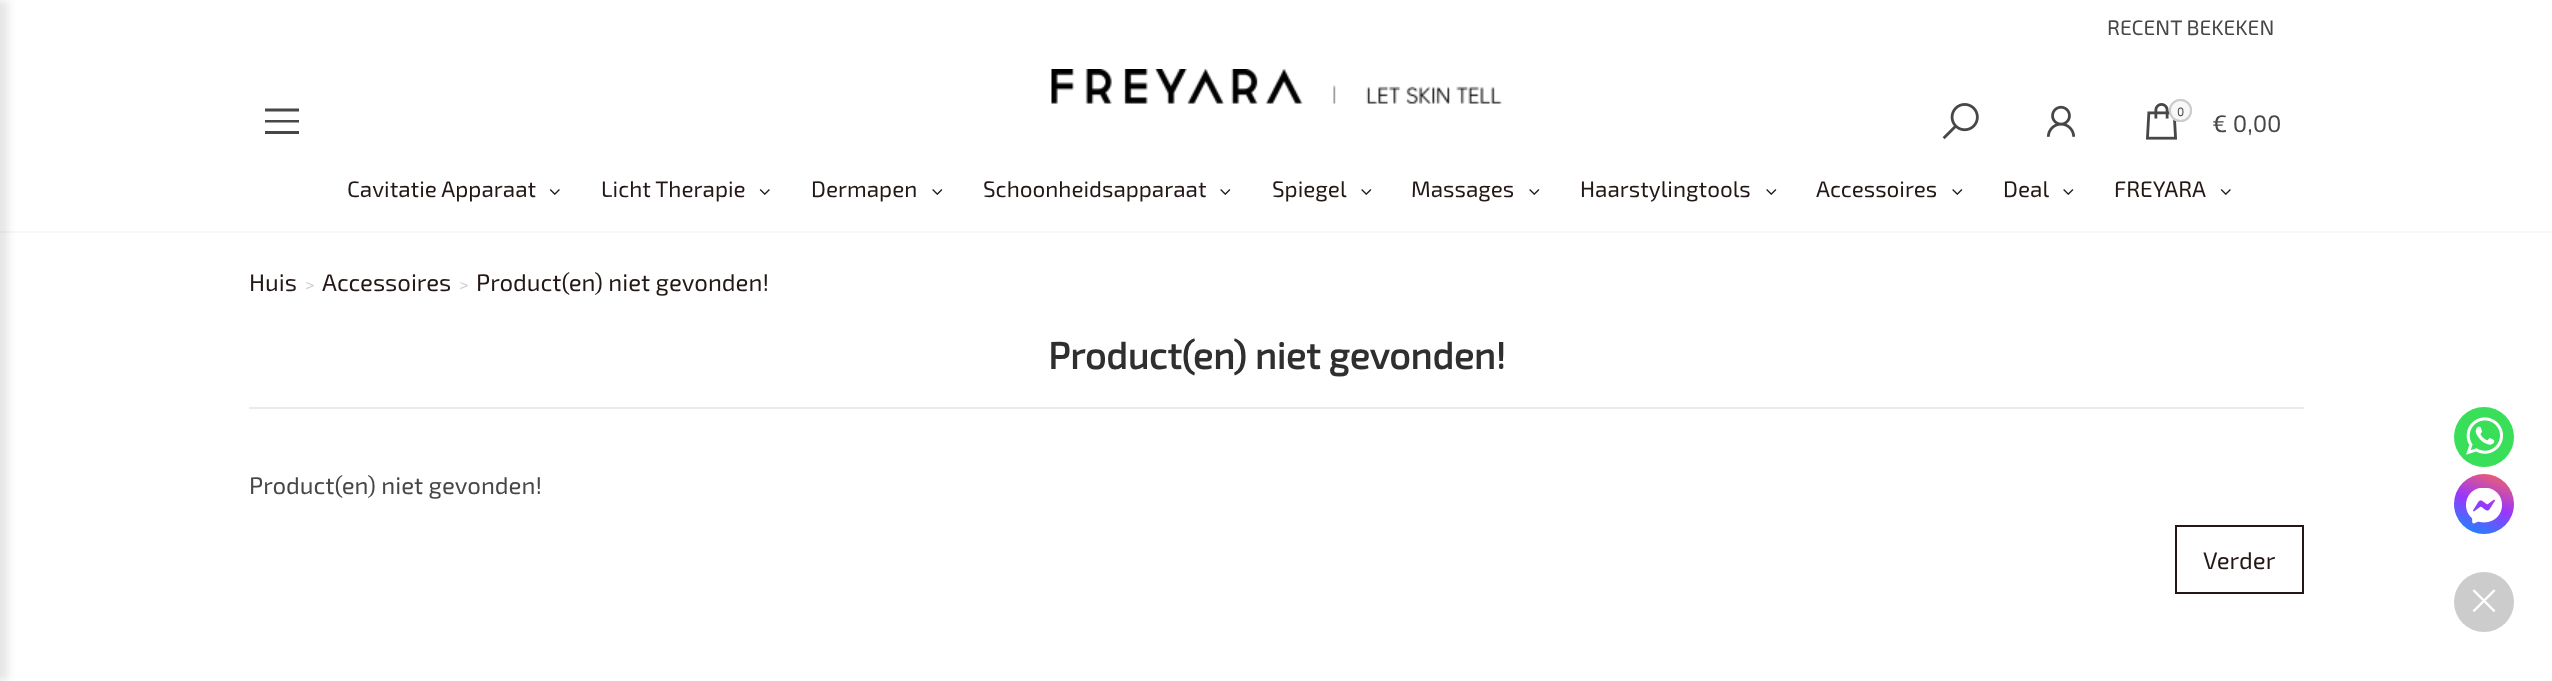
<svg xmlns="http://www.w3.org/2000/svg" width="2552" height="681">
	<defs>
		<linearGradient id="g1" gradientUnits="userSpaceOnUse" x1="2497" y1="468" x2="2471" y2="540"><stop offset="0" stop-color="#FC6756" /><stop offset="0.5" stop-color="#9A36FD" /><stop offset="1" stop-color="#0A92FE" /></linearGradient>
	</defs>
	<rect width="100%" height="100%" fill="#FFFFFF" />
	<rect x="0" y="231" width="2552" height="2" fill="#F8F8F8" />
	<rect x="-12" y="0" width="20" height="681" fill="#000000" fill-opacity="0.1" filter="blur(4px)" />
	<text x="2107" y="35" font-family="'Exo 2'" font-size="21" fill="#474747">RECENT BEKEKEN</text>
	<image x="1051" y="69" width="451" height="35" href="assets/img1.png" />
	<path d="M265 108.5V111.5H299V108.5ZM265 120V122.5H299V120ZM265 131V134H299V131Z" fill="#474747" />
	<image x="1942" y="103" width="37" height="37" href="assets/img2.png" />
	<image x="2046" y="105" width="30" height="32" href="assets/img3.png" />
	<image x="2145" y="103" width="33" height="37" href="assets/img4.png" />
	<circle cx="2180.5" cy="110.5" r="10.5" fill="none" stroke="#CCCCCC" stroke-width="2" />
	<circle cx="2180.5" cy="110.5" r="10.5" fill="#F8F8F8" stroke="#CCCCCC" stroke-width="2" />
	<text x="2177" y="116" font-family="'Exo 2'" font-size="12" fill="#474747">0</text>
	<text x="2212" y="132" font-family="'Exo 2'" font-size="24" fill="#474747">€ 0,00</text>
	<text x="347" y="197" font-family="'Exo 2'" font-size="22.5" fill="#231815">Cavitatie Apparaat</text>
	<image x="549" y="189" width="11" height="6" href="assets/img5.png" />
	<text x="601" y="197" font-family="'Exo 2'" font-size="22.5" fill="#231815">Licht Therapie</text>
	<image x="759" y="189" width="11" height="6" href="assets/img5.png" />
	<text x="811" y="197" font-family="'Exo 2'" font-size="22.5" fill="#231815">Dermapen</text>
	<image x="932" y="189" width="11" height="6" href="assets/img6.png" />
	<text x="983" y="197" font-family="'Exo 2'" font-size="22.5" fill="#231815">Schoonheidsapparaat</text>
	<image x="1220" y="189" width="11" height="6" href="assets/img6.png" />
	<text x="1272" y="197" font-family="'Exo 2'" font-size="22.5" fill="#231815">Spiegel</text>
	<image x="1361" y="189" width="11" height="6" href="assets/img6.png" />
	<text x="1411" y="197" font-family="'Exo 2'" font-size="22.5" fill="#231815">Massages</text>
	<image x="1529" y="189" width="11" height="6" href="assets/img6.png" />
	<text x="1580" y="197" font-family="'Exo 2'" font-size="22.5" fill="#231815">Haarstylingtools</text>
	<image x="1766" y="189" width="11" height="6" href="assets/img6.png" />
	<text x="1816" y="197" font-family="'Exo 2'" font-size="22.5" fill="#231815">Accessoires</text>
	<image x="1952" y="189" width="11" height="6" href="assets/img6.png" />
	<text x="2003" y="197" font-family="'Exo 2'" font-size="22.5" fill="#231815">Deal</text>
	<image x="2063" y="189" width="11" height="6" href="assets/img6.png" />
	<text x="2114" y="197" font-family="'Exo 2'" font-size="22.5" fill="#231815">FREYARA</text>
	<image x="2220" y="189" width="11" height="6" href="assets/img5.png" />
	<text x="249" y="291" font-family="'Exo 2'" font-size="24" fill="#231815">Huis</text>
	<text x="305" y="291" font-family="'Exo 2'" font-size="18" fill="#CCCCCC">&gt;</text>
	<text x="322" y="291" font-family="'Exo 2'" font-size="24" fill="#231815">Accessoires</text>
	<text x="459" y="291" font-family="'Exo 2'" font-size="18" fill="#CCCCCC">&gt;</text>
	<text x="476" y="291" font-family="'Exo 2'" font-size="24" fill="#231815">Product(en) niet gevonden!</text>
	<text x="1048" y="369" font-family="'Exo 2'" font-size="37.5" font-weight="700" fill="#2F2F2F">Product(en) niet gevonden!</text>
	<rect x="249" y="407" width="2055" height="2" fill="#EBEBEB" />
	<text x="249" y="494" font-family="'Exo 2'" font-size="24" fill="#474747">Product(en) niet gevonden!</text>
	<rect x="2176" y="526" width="127" height="67" fill="none" stroke="#231815" stroke-width="2" />
	<text x="2203" y="569" font-family="'Exo 2'" font-size="24" fill="#231815">Verder</text>
	<circle cx="2484" cy="437" r="30" fill="#39DE59" />
	<image x="2466" y="417" width="37" height="38" href="assets/img7.png" />
	<circle cx="2484" cy="504" r="30" fill="url(#g1)" />
	<image x="2466" y="488" width="36" height="36" href="assets/img8.png" />
	<circle cx="2484" cy="602" r="30" fill="#CCCCCC" />
	<image x="2472" y="589" width="24" height="23" href="assets/img9.png" />
</svg>
